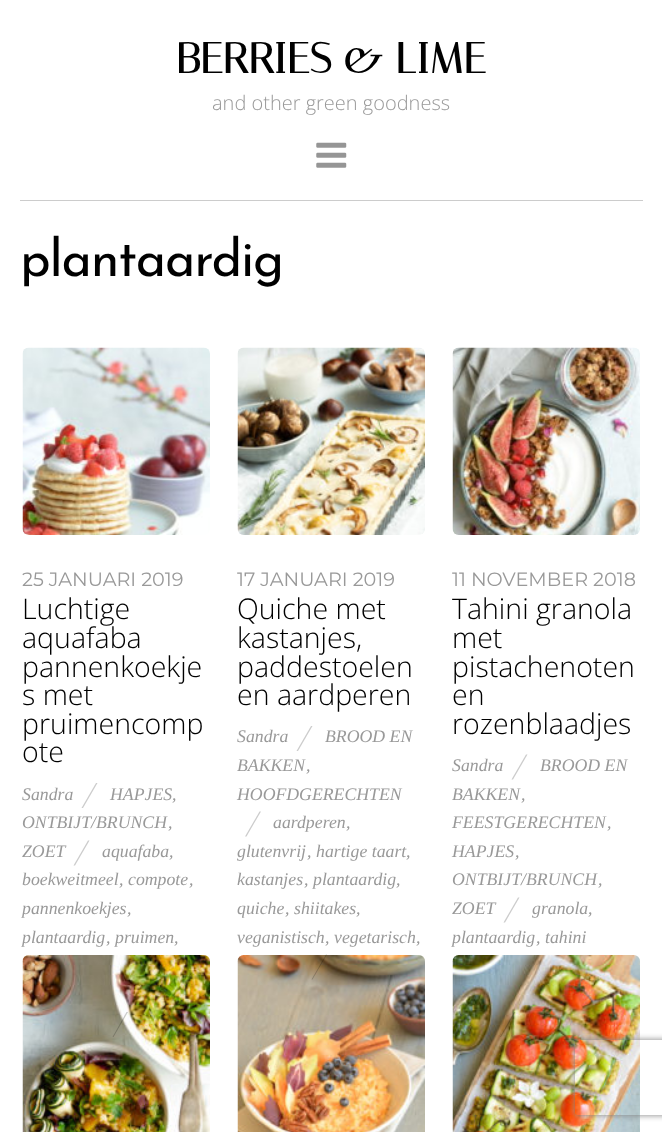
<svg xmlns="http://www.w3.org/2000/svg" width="662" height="1132">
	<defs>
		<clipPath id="clip1"><path d="M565 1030H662V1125H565ZM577.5 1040H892.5C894 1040 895 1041 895 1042.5V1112.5C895 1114 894 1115 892.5 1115H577.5C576 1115 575 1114 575 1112.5V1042.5C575 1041 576 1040 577.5 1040Z" clip-rule="evenodd" /></clipPath>
	</defs>
	<rect width="100%" height="100%" fill="#FFFFFF" />
	<rect x="20" y="200" width="623" height="1" fill="#CCCCCC" />
	<text x="176" y="73" font-family="Italiana" font-size="42.75" font-weight="700" fill="#000000">BERRIES &amp; LIME</text>
	<text x="212" y="110" font-family="Open Sans" font-size="20" font-weight="300" fill="#999999">and other green goodness</text>
	<image x="316" y="142" width="31" height="26" href="assets/img1.png" />
	<text x="20" y="276" font-family="Josefin Sans" font-size="52" font-weight="100" letter-spacing="-1.25" fill="#000000">plantaardig</text>
	<image x="22" y="347" width="188" height="188" href="assets/img2.png" />
	<text x="22" y="586" font-family="Montserrat" font-size="19.25" fill="#999999">25 JANUARI 2019</text>
	<g font-family="Open Sans" font-size="28.5" font-weight="300" fill="#000000">
		<text x="22" y="619">Luchtige</text>
		<text x="22" y="648">aquafaba</text>
		<text x="22" y="677">pannenkoekje</text>
		<text x="22" y="705">s met</text>
		<text x="22" y="734">pruimencomp</text>
		<text x="22" y="762">ote</text>
	</g>
	<text x="22" y="800" font-family="Liberation Serif" font-size="17.75" font-style="italic" fill="#999999">Sandra</text>
	<path d="M96 783H97.5L83 808H81.5Z" fill="#CCCCCC" />
	<g font-family="Liberation Serif" font-size="17.75" font-style="italic" fill="#999999">
		<text x="110" y="800">HAPJES</text>
		<text x="172" y="800">,</text>
		<text x="22" y="828">ONTBIJT/BRUNCH</text>
		<text x="168" y="828">,</text>
		<text x="22" y="857">ZOET</text>
	</g>
	<path d="M88 840.5H89.5L75 865.5H73.5Z" fill="#CCCCCC" />
	<g font-family="Liberation Serif" font-size="17.75" font-style="italic" fill="#999999">
		<text x="102" y="857">aquafaba</text>
		<text x="169" y="857">,</text>
		<text x="22" y="885">boekweitmeel</text>
		<text x="119" y="885">,</text>
		<text x="128" y="885">compote</text>
		<text x="189" y="885">,</text>
		<text x="22" y="914">pannenkoekjes</text>
		<text x="127" y="914">,</text>
		<text x="22" y="943">plantaardig</text>
		<text x="106" y="943">,</text>
		<text x="115" y="943">pruimen</text>
		<text x="174" y="943">,</text>
	</g>
	<image x="22" y="955" width="188" height="177" href="assets/img5.png" />
	<path d="M126.5 1012H128L113.5 1037H112.5Z" fill="#000000" fill-opacity="0.2" />
	<image x="237" y="347" width="188" height="188" href="assets/img3.png" />
	<text x="237" y="586" font-family="Montserrat" font-size="19.25" fill="#999999">17 JANUARI 2019</text>
	<g font-family="Open Sans" font-size="28.5" font-weight="300" fill="#000000">
		<text x="237" y="619">Quiche met</text>
		<text x="237" y="648">kastanjes,</text>
		<text x="237" y="677">paddestoelen</text>
		<text x="237" y="705">en aardperen</text>
	</g>
	<text x="237" y="742" font-family="Liberation Serif" font-size="17.75" font-style="italic" fill="#999999">Sandra</text>
	<path d="M311 726H312.5L298 751H296.5Z" fill="#CCCCCC" />
	<g font-family="Liberation Serif" font-size="17.75" font-style="italic" fill="#999999">
		<text x="325" y="742">BROOD EN</text>
		<text x="237" y="771">BAKKEN</text>
		<text x="306" y="771">,</text>
		<text x="237" y="800">HOOFDGERECHTEN</text>
	</g>
	<path d="M259.5 811.5H261L246.5 836.5H245Z" fill="#CCCCCC" />
	<g font-family="Liberation Serif" font-size="17.75" font-style="italic" fill="#999999">
		<text x="273" y="828">aardperen</text>
		<text x="346" y="828">,</text>
		<text x="237" y="857">glutenvrij</text>
		<text x="307" y="857">,</text>
		<text x="316" y="857">hartige taart</text>
		<text x="406" y="857">,</text>
		<text x="237" y="885">kastanjes</text>
		<text x="304" y="885">,</text>
		<text x="313" y="885">plantaardig</text>
		<text x="396" y="885">,</text>
		<text x="237" y="914">quiche</text>
		<text x="285" y="914">,</text>
		<text x="294" y="914">shiitakes</text>
		<text x="356" y="914">,</text>
		<text x="237" y="943">veganistisch</text>
		<text x="325" y="943">,</text>
		<text x="334" y="943">vegetarisch</text>
		<text x="416" y="943">,</text>
	</g>
	<image x="237" y="955" width="188" height="177" href="assets/img6.png" />
	<path d="M326 954.5H327L312.5 979.5H311.5Z" fill="#000000" fill-opacity="0.2" />
	<image x="452" y="347" width="188" height="188" href="assets/img4.png" />
	<text x="452" y="586" font-family="Montserrat" font-size="19.25" fill="#999999">11 NOVEMBER 2018</text>
	<g font-family="Open Sans" font-size="28.5" font-weight="300" fill="#000000">
		<text x="452" y="619">Tahini granola</text>
		<text x="452" y="648">met</text>
		<text x="452" y="677">pistachenoten</text>
		<text x="452" y="705">en</text>
		<text x="452" y="734">rozenblaadjes</text>
	</g>
	<text x="452" y="771" font-family="Liberation Serif" font-size="17.75" font-style="italic" fill="#999999">Sandra</text>
	<path d="M526 754.5H527.5L513 779.5H511.5Z" fill="#CCCCCC" />
	<g font-family="Liberation Serif" font-size="17.75" font-style="italic" fill="#999999">
		<text x="540" y="771">BROOD EN</text>
		<text x="452" y="800">BAKKEN</text>
		<text x="521" y="800">,</text>
		<text x="452" y="828">FEESTGERECHTEN</text>
		<text x="607" y="828">,</text>
		<text x="452" y="857">HAPJES</text>
		<text x="515" y="857">,</text>
		<text x="452" y="885">ONTBIJT/BRUNCH</text>
		<text x="598" y="885">,</text>
		<text x="452" y="914">ZOET</text>
	</g>
	<path d="M518 897.5H519.5L505 922.5H503.5Z" fill="#CCCCCC" />
	<g font-family="Liberation Serif" font-size="17.75" font-style="italic" fill="#999999">
		<text x="532" y="914">granola</text>
		<text x="588" y="914">,</text>
		<text x="452" y="943">plantaardig</text>
		<text x="536" y="943">,</text>
		<text x="545" y="943">tahini</text>
	</g>
	<image x="452" y="955" width="188" height="177" href="assets/img7.png" />
	<path d="M514 1012H515.5L501 1037H500Z" fill="#000000" fill-opacity="0.2" />
	<g clip-path="url(#clip1)">
		<rect x="575" y="1040" width="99" height="75" rx="2.5" fill="#808080" filter="blur(3px)" />
	</g>
</svg>
